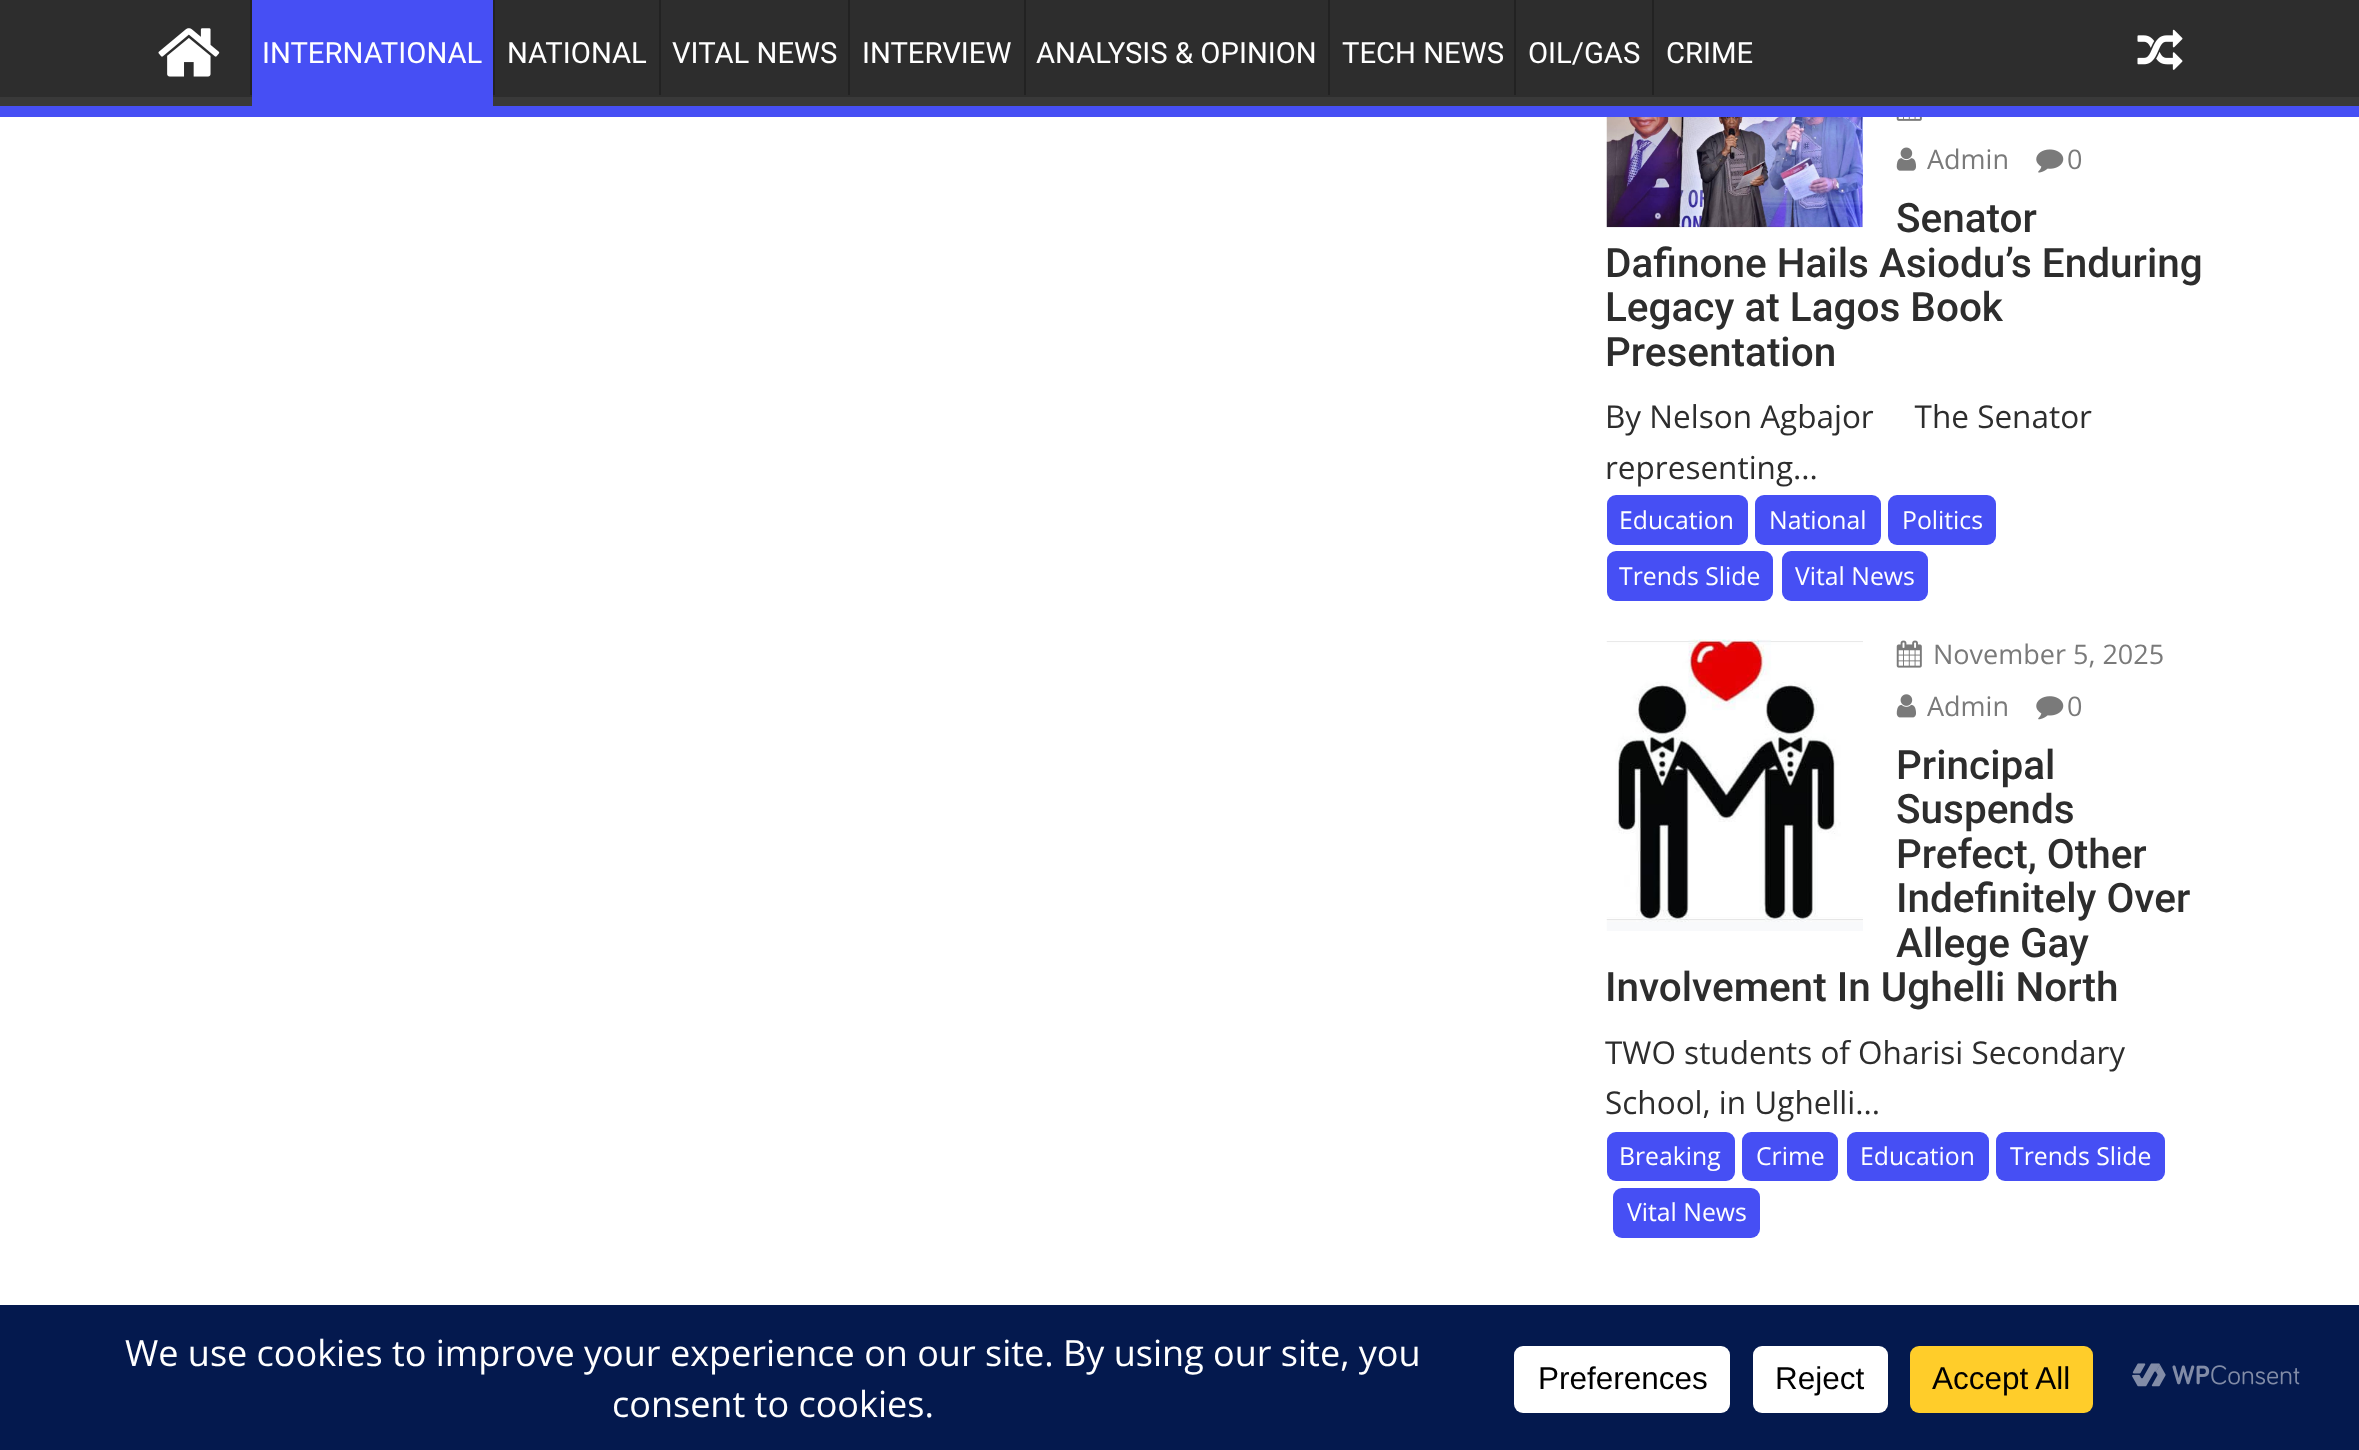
<svg xmlns="http://www.w3.org/2000/svg" width="2359" height="1450">
	<defs>
		<clipPath id="clip1"><rect x="0" y="0" width="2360" height="106" /></clipPath>
	</defs>
	<rect width="100%" height="100%" fill="#FFFFFF" />
	<rect x="0" y="0" width="2359" height="97" fill="#2D2D2D" />
	<g clip-path="url(#clip1)">
		<path d="M-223-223H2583V328H-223ZM-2-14H2358C2359-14 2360-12 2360-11V94C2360 96 2359 97 2358 97H-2C-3 97-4 96-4 94V-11C-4-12-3-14-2-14Z" fill="#393939" fill-rule="evenodd" />
	</g>
	<rect x="0" y="106" width="2359" height="11" fill="#464FF4" />
	<image x="158" y="28" width="62" height="49" href="assets/img1.png" />
	<rect x="250" y="0" width="2" height="95" fill="#222222" />
	<rect x="252" y="0" width="241" height="106" fill="#464FF4" />
	<text x="262" y="63" font-family="Roboto" font-size="29.25" fill="#FFFFFF">INTERNATIONAL</text>
	<rect x="493" y="0" width="2" height="95" fill="#222222" />
	<text x="507" y="63" font-family="Roboto" font-size="29.25" fill="#FFFFFF">NATIONAL</text>
	<rect x="659" y="0" width="2" height="95" fill="#222222" />
	<text x="672" y="63" font-family="Roboto" font-size="29.25" fill="#FFFFFF">VITAL NEWS</text>
	<rect x="848" y="0" width="2" height="95" fill="#222222" />
	<text x="862" y="63" font-family="Roboto" font-size="29.25" fill="#FFFFFF">INTERVIEW</text>
	<rect x="1024" y="0" width="2" height="95" fill="#222222" />
	<text x="1036" y="63" font-family="Roboto" font-size="29.25" fill="#FFFFFF">ANALYSIS &amp; OPINION</text>
	<rect x="1328" y="0" width="2" height="95" fill="#222222" />
	<text x="1342" y="63" font-family="Roboto" font-size="29.25" fill="#FFFFFF">TECH NEWS</text>
	<rect x="1514" y="0" width="2" height="95" fill="#222222" />
	<text x="1528" y="63" font-family="Roboto" font-size="29.25" fill="#FFFFFF">OIL/GAS</text>
	<rect x="1652" y="0" width="2" height="95" fill="#222222" />
	<text x="1666" y="63" font-family="Roboto" font-size="29.25" fill="#FFFFFF">CRIME</text>
	<image x="2137" y="29" width="46" height="41" href="assets/img2.png" />
	<image x="1606" y="117" width="257" height="111" href="assets/img3.png" />
	<image x="1896" y="117" width="26" height="4" href="assets/img4.png" />
	<image x="1896" y="147" width="20" height="24" href="assets/img5.png" />
	<text x="1927" y="169" font-family="Open Sans" font-size="27" fill="#7A7A7A">Admin</text>
	<image x="2036" y="149" width="28" height="24" href="assets/img6.png" />
	<text x="2067" y="169" font-family="Open Sans" font-size="27" fill="#7A7A7A">0</text>
	<g font-family="Roboto" font-size="40.5" font-weight="500" fill="#2D2D2D">
		<text x="1896" y="232">Senator</text>
		<text x="1605" y="277">Dafinone Hails Asiodu’s Enduring</text>
		<text x="1605" y="321">Legacy at Lagos Book</text>
		<text x="1605" y="366">Presentation</text>
	</g>
	<g font-family="Open Sans" font-size="31.5" fill="#2D2D2D">
		<text x="1605" y="428" xml:space="preserve">By Nelson Agbajor     The Senator</text>
		<text x="1605" y="479">representing...</text>
	</g>
	<rect x="1607" y="495" width="141" height="50" rx="9" fill="#464FF4" />
	<text x="1619" y="529" font-family="Open Sans" font-size="24.75" fill="#FFFFFF">Education</text>
	<rect x="1755" y="495" width="126" height="50" rx="9" fill="#464FF4" />
	<text x="1769" y="529" font-family="Open Sans" font-size="24.75" fill="#FFFFFF">National</text>
	<rect x="1888" y="495" width="108" height="50" rx="9" fill="#464FF4" />
	<text x="1902" y="529" font-family="Open Sans" font-size="24.75" fill="#FFFFFF">Politics</text>
	<rect x="1607" y="551" width="166" height="50" rx="9" fill="#464FF4" />
	<text x="1619" y="585" font-family="Open Sans" font-size="24.75" fill="#FFFFFF">Trends Slide</text>
	<rect x="1782" y="551" width="146" height="50" rx="9" fill="#464FF4" />
	<text x="1795" y="585" font-family="Open Sans" font-size="24.75" fill="#FFFFFF">Vital News</text>
	<image x="1606" y="639" width="257" height="292" href="assets/img7.png" />
	<image x="1896" y="640" width="26" height="28" href="assets/img8.png" />
	<text x="1933" y="664" font-family="Open Sans" font-size="27" fill="#7A7A7A">November 5, 2025</text>
	<image x="1896" y="694" width="20" height="24" href="assets/img9.png" />
	<text x="1927" y="716" font-family="Open Sans" font-size="27" fill="#7A7A7A">Admin</text>
	<image x="2036" y="696" width="28" height="24" href="assets/img10.png" />
	<text x="2067" y="716" font-family="Open Sans" font-size="27" fill="#7A7A7A">0</text>
	<g font-family="Roboto" font-size="40.5" font-weight="500" fill="#2D2D2D">
		<text x="1896" y="779">Principal</text>
		<text x="1896" y="823">Suspends</text>
		<text x="1896" y="868">Prefect, Other</text>
		<text x="1896" y="912">Indefinitely Over</text>
		<text x="1896" y="957">Allege Gay</text>
		<text x="1605" y="1001">Involvement In Ughelli North</text>
	</g>
	<g font-family="Open Sans" font-size="31.5" fill="#2D2D2D">
		<text x="1605" y="1064">TWO students of Oharisi Secondary</text>
		<text x="1605" y="1114">School, in Ughelli...</text>
	</g>
	<rect x="1607" y="1132" width="128" height="49" rx="9" fill="#464FF4" />
	<text x="1619" y="1165" font-family="Open Sans" font-size="24.75" fill="#FFFFFF">Breaking</text>
	<rect x="1742" y="1132" width="96" height="49" rx="9" fill="#464FF4" />
	<text x="1756" y="1165" font-family="Open Sans" font-size="24.75" fill="#FFFFFF">Crime</text>
	<rect x="1847" y="1132" width="142" height="49" rx="9" fill="#464FF4" />
	<text x="1860" y="1165" font-family="Open Sans" font-size="24.75" fill="#FFFFFF">Education</text>
	<rect x="1996" y="1132" width="169" height="49" rx="9" fill="#464FF4" />
	<text x="2010" y="1165" font-family="Open Sans" font-size="24.75" fill="#FFFFFF">Trends Slide</text>
	<rect x="1613" y="1188" width="147" height="50" rx="9" fill="#464FF4" />
	<text x="1627" y="1221" font-family="Open Sans" font-size="24.75" fill="#FFFFFF">Vital News</text>
	<rect x="0" y="1305" width="2359" height="145" fill="#04194E" />
	<g font-family="Open Sans" font-size="36" fill="#FFFFFF">
		<text x="125" y="1366">We use cookies to improve your experience on our site. By using our site, you</text>
		<text x="612" y="1417">consent to cookies.</text>
	</g>
	<rect x="1514" y="1346" width="216" height="67" rx="9" fill="#FFFFFF" />
	<text x="1538" y="1389" font-family="Liberation Sans" font-size="31.5" fill="#000000">Preferences</text>
	<rect x="1753" y="1346" width="135" height="67" rx="9" fill="#FFFFFF" />
	<text x="1775" y="1389" font-family="Liberation Sans" font-size="31.5" fill="#000000">Reject</text>
	<rect x="1910" y="1346" width="183" height="67" rx="9" fill="#FFCD2A" />
	<text x="1932" y="1389" font-family="Liberation Sans" font-size="31.5" fill="#000000">Accept All</text>
	<image x="2132" y="1363" width="168" height="24" href="assets/img11.png" />
</svg>
